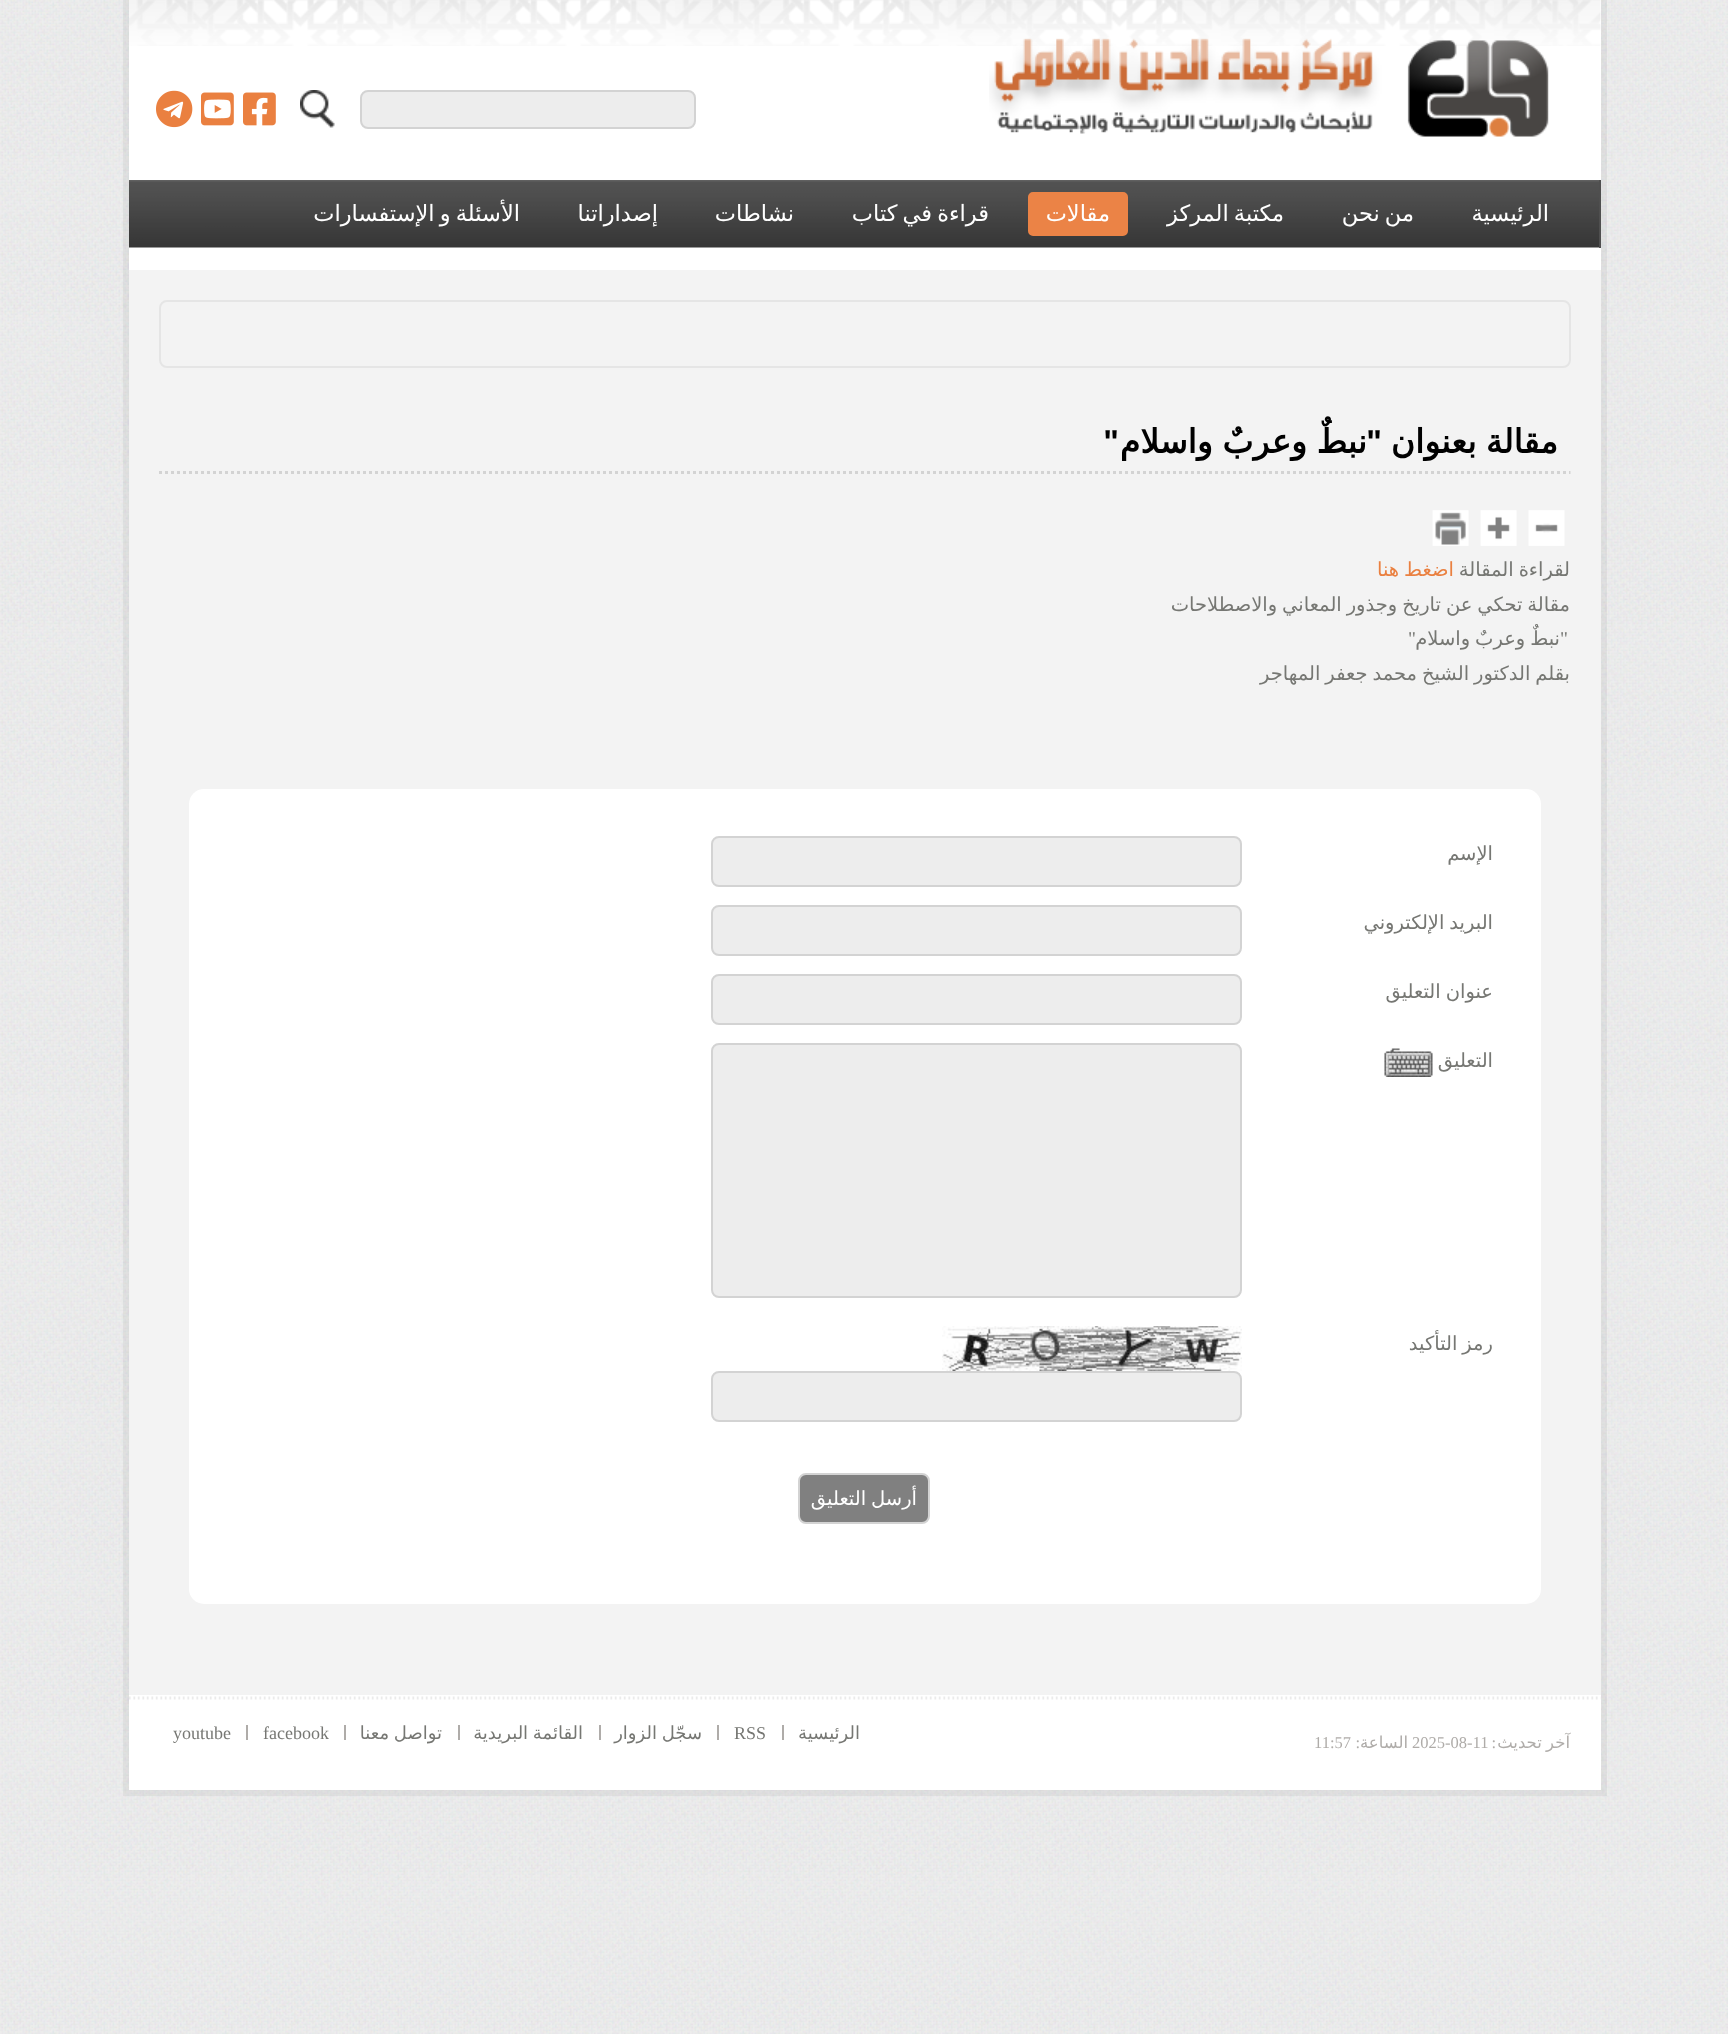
<svg xmlns="http://www.w3.org/2000/svg" width="1728" height="2034">
	<rect width="100%" height="100%" fill="#FFFFFF" />
	<image x="0" y="0" width="1728" height="2034" href="assets/img1.png" />
	<rect x="126" y="-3" width="1478" height="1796" fill="none" stroke="#000000" stroke-opacity="0.05" stroke-width="6" />
	<rect x="129" y="0" width="1472" height="1790" fill="#FFFFFF" />
	<image x="129" y="0" width="1472" height="46" href="assets/img2.png" />
	<image x="989" y="38" width="560" height="99" href="assets/img3.png" />
	<rect x="361" y="91" width="334" height="37" rx="7" fill="#EDEDED" stroke="#D3D3D3" stroke-width="2" />
	<image x="300" y="90" width="35" height="38" href="assets/img4.png" />
	<image x="243" y="92" width="33" height="34" href="assets/img5.png" />
	<image x="201" y="92" width="33" height="34" href="assets/img6.png" />
	<image x="156" y="90" width="37" height="38" href="assets/img7.png" />
	<image x="129" y="180" width="1470" height="68" href="assets/img8.png" />
	<rect x="1599" y="180" width="2" height="68" fill="#4F4F4F" />
	<g font-family="DejaVu Sans" font-size="22.5" direction="rtl" fill="#FFFFFF">
		<text x="1549" y="221">الرئيسية</text>
		<text x="1414" y="221" word-spacing="-2">من نحن</text>
		<text x="1284" y="221" word-spacing="-2">مكتبة المركز</text>
	</g>
	<rect x="1029.5" y="193.5" width="97" height="41" rx="3.5" fill="#EB8346" stroke="#EB8346" stroke-width="3" />
	<g font-family="DejaVu Sans" font-size="22.5" direction="rtl" fill="#FFFFFF">
		<text x="1110" y="221">مقالات</text>
		<text x="989" y="221" word-spacing="-2">قراءة في كتاب</text>
		<text x="794" y="221">نشاطات</text>
		<text x="658" y="221">إصداراتنا</text>
		<text x="520" y="221" word-spacing="-2">الأسئلة و الإستفسارات</text>
	</g>
	<rect x="129" y="270" width="1472" height="1425" fill="#F3F3F3" />
	<rect x="160" y="301" width="1410" height="66" rx="7" fill="none" stroke="#E5E5E5" stroke-width="2" />
	<path d="M159 472.5H1570.5" fill="none" stroke="#D3D3D3" stroke-width="3" stroke-dasharray="3 3" />
	<text x="1558" y="453" word-spacing="-1" font-family="DejaVu Sans" font-size="33" font-weight="700" direction="rtl" fill="#000000">مقالة بعنوان</text>
	<text x="1382" y="453" font-family="Liberation Sans" font-size="33" font-weight="700" direction="rtl" fill="#000000">"</text>
	<text x="1367" y="453" word-spacing="-1" font-family="DejaVu Sans" font-size="33" font-weight="700" direction="rtl" fill="#000000">نبطٌ وعربٌ واسلام</text>
	<text x="1119" y="453" font-family="Liberation Sans" font-size="33" font-weight="700" direction="rtl" fill="#000000">"</text>
	<image x="1528" y="510" width="37" height="36" href="assets/img9.png" />
	<image x="1480" y="510" width="37" height="36" href="assets/img10.png" />
	<image x="1432" y="510" width="37" height="36" href="assets/img11.png" />
	<text x="1570" y="576" word-spacing="-1.25" font-family="DejaVu Sans" font-size="19.5" direction="rtl" fill="#767773">لقراءة المقالة</text>
	<text x="1454" y="576" word-spacing="-1.25" font-family="DejaVu Sans" font-size="19.5" direction="rtl" fill="#EA8040">اضغط هنا</text>
	<g font-family="DejaVu Sans" font-size="19.5" direction="rtl" fill="#767773">
		<text x="1570" y="611" word-spacing="-1.25">مقالة تحكي عن تاريخ وجذور المعاني والاصطلاحات</text>
		<text x="1560" y="645" word-spacing="-1.25">نبطٌ وعربٌ واسلام</text>
	</g>
	<g font-family="Liberation Serif" font-size="19.5" direction="rtl" fill="#767773">
		<text x="1568" y="645">"</text>
		<text x="1416" y="645">"</text>
	</g>
	<text x="1570" y="680" word-spacing="-1.25" font-family="DejaVu Sans" font-size="19.5" direction="rtl" fill="#767773">بقلم الدكتور الشيخ محمد جعفر المهاجر</text>
	<rect x="189" y="789" width="1352" height="815" rx="15" fill="#FFFFFF" />
	<text x="1493" y="860" font-family="DejaVu Sans" font-size="19.5" direction="rtl" fill="#767773">الإسم</text>
	<rect x="712" y="837" width="529" height="49" rx="7" fill="#EDEDED" stroke="#D3D3D3" stroke-width="2" />
	<text x="1493" y="929" word-spacing="-1.25" font-family="DejaVu Sans" font-size="19.5" direction="rtl" fill="#767773">البريد الإلكتروني</text>
	<rect x="712" y="906" width="529" height="49" rx="7" fill="#EDEDED" stroke="#D3D3D3" stroke-width="2" />
	<text x="1493" y="998" word-spacing="-1.25" font-family="DejaVu Sans" font-size="19.5" direction="rtl" fill="#767773">عنوان التعليق</text>
	<rect x="712" y="975" width="529" height="49" rx="7" fill="#EDEDED" stroke="#D3D3D3" stroke-width="2" />
	<text x="1493" y="1067" font-family="DejaVu Sans" font-size="19.5" direction="rtl" fill="#767773">التعليق</text>
	<image x="1384" y="1048" width="49" height="29" href="assets/img12.png" />
	<rect x="712" y="1044" width="529" height="253" rx="7" fill="#EDEDED" stroke="#D3D3D3" stroke-width="2" />
	<text x="1493" y="1350" word-spacing="-1.25" font-family="DejaVu Sans" font-size="19.5" direction="rtl" fill="#767773">رمز التأكيد</text>
	<image x="942" y="1326" width="300" height="45" href="assets/img13.png" />
	<rect x="712" y="1372" width="529" height="49" rx="7" fill="#EDEDED" stroke="#D3D3D3" stroke-width="2" />
	<rect x="799" y="1474" width="130" height="49" rx="7" fill="#808080" stroke="#D3D3D3" stroke-width="2" />
	<text x="917" y="1505" word-spacing="-1.25" font-family="DejaVu Sans" font-size="19.5" direction="rtl" fill="#FFFFFF">أرسل التعليق</text>
	<image x="129" y="1696" width="1472" height="4" href="assets/img14.png" />
	<text x="1570" y="1748" word-spacing="-1" font-family="DejaVu Sans" font-size="16.5" direction="rtl" fill="#AFACA9">آخر تحديث</text>
	<text x="1496" y="1748" font-family="Liberation Serif" font-size="16.5" direction="rtl" fill="#AFACA9">:</text>
	<text x="1412" y="1748" font-family="Liberation Serif" font-size="16.5" fill="#AFACA9">2025-08-11</text>
	<text x="1408" y="1748" font-family="DejaVu Sans" font-size="16.5" direction="rtl" fill="#AFACA9">الساعة</text>
	<text x="1360" y="1748" font-family="Liberation Serif" font-size="16.5" direction="rtl" fill="#AFACA9">:</text>
	<text x="1314" y="1748" font-family="Liberation Serif" font-size="16.5" fill="#AFACA9">11:57</text>
	<text x="860" y="1739" font-family="DejaVu Sans" font-size="18" direction="rtl" fill="#767773">الرئيسية</text>
	<rect x="782" y="1725" width="2" height="15" fill="#AFACA9" />
	<text x="734" y="1739" font-family="Liberation Serif" font-size="18" fill="#767773">RSS</text>
	<rect x="717" y="1725" width="2" height="15" fill="#AFACA9" />
	<text x="702" y="1739" word-spacing="-1" font-family="DejaVu Sans" font-size="18" direction="rtl" fill="#767773">سجّل الزوار</text>
	<rect x="599" y="1725" width="2" height="15" fill="#AFACA9" />
	<text x="583" y="1739" word-spacing="-1" font-family="DejaVu Sans" font-size="18" direction="rtl" fill="#767773">القائمة البريدية</text>
	<rect x="458" y="1725" width="2" height="15" fill="#AFACA9" />
	<text x="442" y="1739" word-spacing="-1" font-family="DejaVu Sans" font-size="18" direction="rtl" fill="#767773">تواصل معنا</text>
	<rect x="344" y="1725" width="2" height="15" fill="#AFACA9" />
	<text x="263" y="1739" font-family="Liberation Serif" font-size="18" fill="#767773">facebook</text>
	<rect x="246" y="1725" width="2" height="15" fill="#AFACA9" />
	<text x="173" y="1739" font-family="Liberation Serif" font-size="18" fill="#767773">youtube</text>
</svg>
